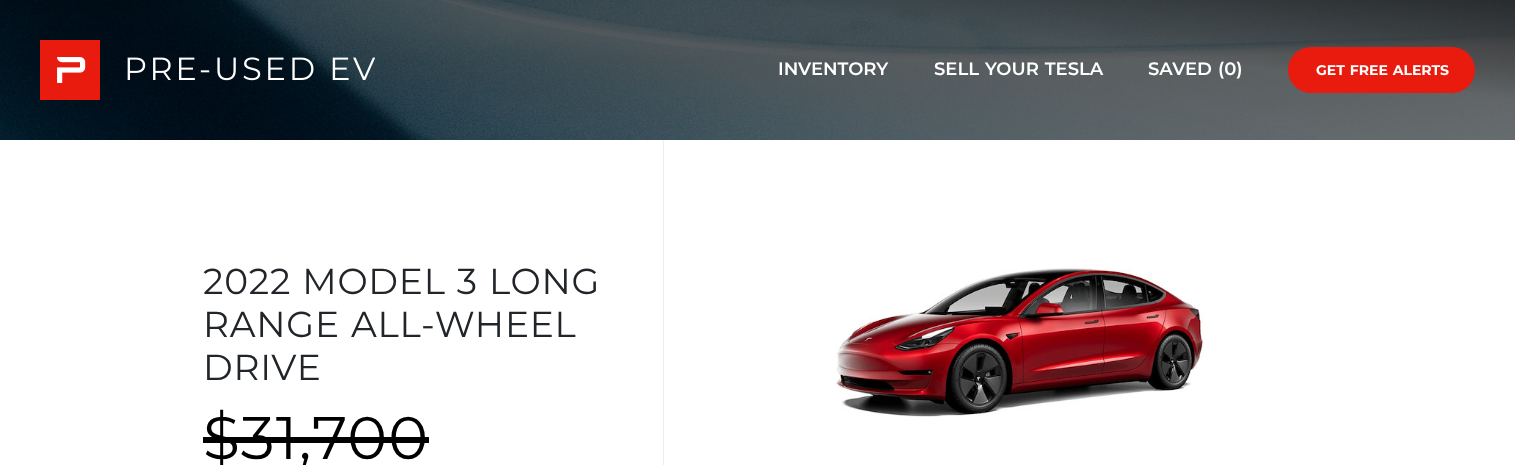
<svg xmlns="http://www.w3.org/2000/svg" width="1515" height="465">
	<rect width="100%" height="100%" fill="#FFFFFF" />
	<image x="0" y="0" width="1515" height="140" href="assets/img1.png" />
	<image x="40" y="40" width="336" height="60" href="assets/img2.png" />
	<g font-family="Montserrat" font-size="18" font-weight="600" fill="#FFFFFF">
		<text x="778" y="75">INVENTORY</text>
		<text x="934" y="75" word-spacing="1">SELL YOUR TESLA</text>
		<text x="1148" y="75" word-spacing="1">SAVED (0)</text>
	</g>
	<rect x="1289" y="48" width="185" height="44" rx="22" fill="#E91B0E" stroke="#E91B0E" stroke-width="2" />
	<text x="1316" y="75" word-spacing="1" font-family="Montserrat" font-size="14" font-weight="700" fill="#FFFFFF">GET FREE ALERTS</text>
	<g font-family="Montserrat" font-size="36" letter-spacing="0.75" fill="#212529">
		<text x="203" y="294" word-spacing="1">2022 MODEL 3 LONG</text>
		<text x="203" y="337" word-spacing="1">RANGE ALL-WHEEL</text>
		<text x="203" y="380">DRIVE</text>
	</g>
	<text x="203" y="459" font-family="Montserrat" font-size="60" letter-spacing="1.25" fill="#000000">$31,700</text>
	<rect x="203" y="437" width="226" height="6" fill="#000000" />
	<rect x="663" y="140" width="1" height="325" fill="#EEEEEE" />
	<image x="836" y="268" width="368" height="149" href="assets/img3.png" />
</svg>
